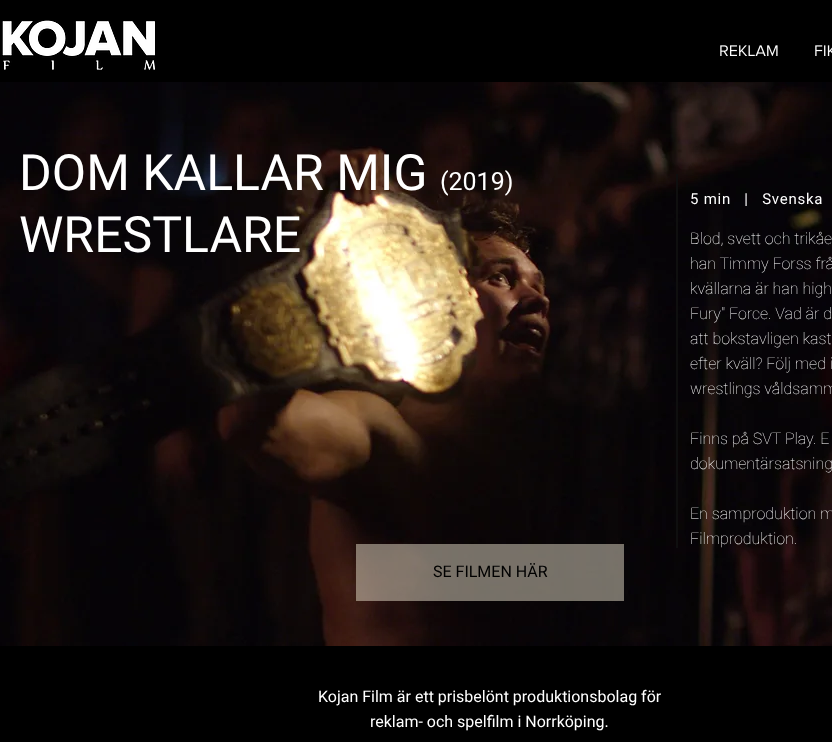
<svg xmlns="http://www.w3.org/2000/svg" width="832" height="742">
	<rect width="100%" height="100%" fill="#000000" />
	<image x="2" y="20" width="153" height="50" href="assets/img1.png" />
	<image x="720" y="45" width="58" height="11" href="assets/img2.png" />
	<image x="815" y="45" width="17" height="11" href="assets/img3.png" />
	<image x="0" y="82" width="832" height="564" href="assets/img4.png" />
	<text x="19" y="190" font-family="Roboto" font-size="50" fill="#FFFFFF">DOM KALLAR MIG</text>
	<text x="440" y="190" font-family="Roboto" font-size="25" fill="#FFFFFF">(2019)</text>
	<text x="19" y="252" font-family="Roboto" font-size="50" fill="#FFFFFF">WRESTLARE</text>
	<rect x="676" y="174" width="2" height="374" fill="#0F0F0F" />
	<text x="690" y="204" font-family="Roboto" font-size="15" letter-spacing="0.75" fill="#FFFFFF" xml:space="preserve">5 min   |   Svenska</text>
	<g font-family="Roboto" font-size="16" font-weight="100" fill="#FFFFFF">
		<text x="690" y="244">Blod, svett och trikåe</text>
		<text x="690" y="269">han Timmy Forss frå</text>
		<text x="690" y="294">kvällarna är han high</text>
		<text x="690" y="319">Fury" Force. Vad är d</text>
		<text x="690" y="344">att bokstavligen kast</text>
		<text x="690" y="369">efter kväll? Följ med i</text>
		<text x="690" y="394">wrestlings våldsamm</text>
		<text x="690" y="444">Finns på SVT Play. E</text>
		<text x="690" y="469">dokumentärsatsning</text>
		<text x="690" y="519">En samproduktion m</text>
		<text x="690" y="544">Filmproduktion.</text>
	</g>
	<rect x="356" y="544" width="268" height="57" fill="#E6DECA" fill-opacity="0.5" />
	<text x="433" y="577" font-family="Roboto" font-size="16" fill="#000000">SE FILMEN HÄR</text>
	<g font-family="Roboto" font-size="16" fill="#FFFFFF">
		<text x="318" y="702">Kojan Film är ett prisbelönt produktionsbolag för</text>
		<text x="370" y="727">reklam- och spelfilm i Norrköping.</text>
	</g>
</svg>
